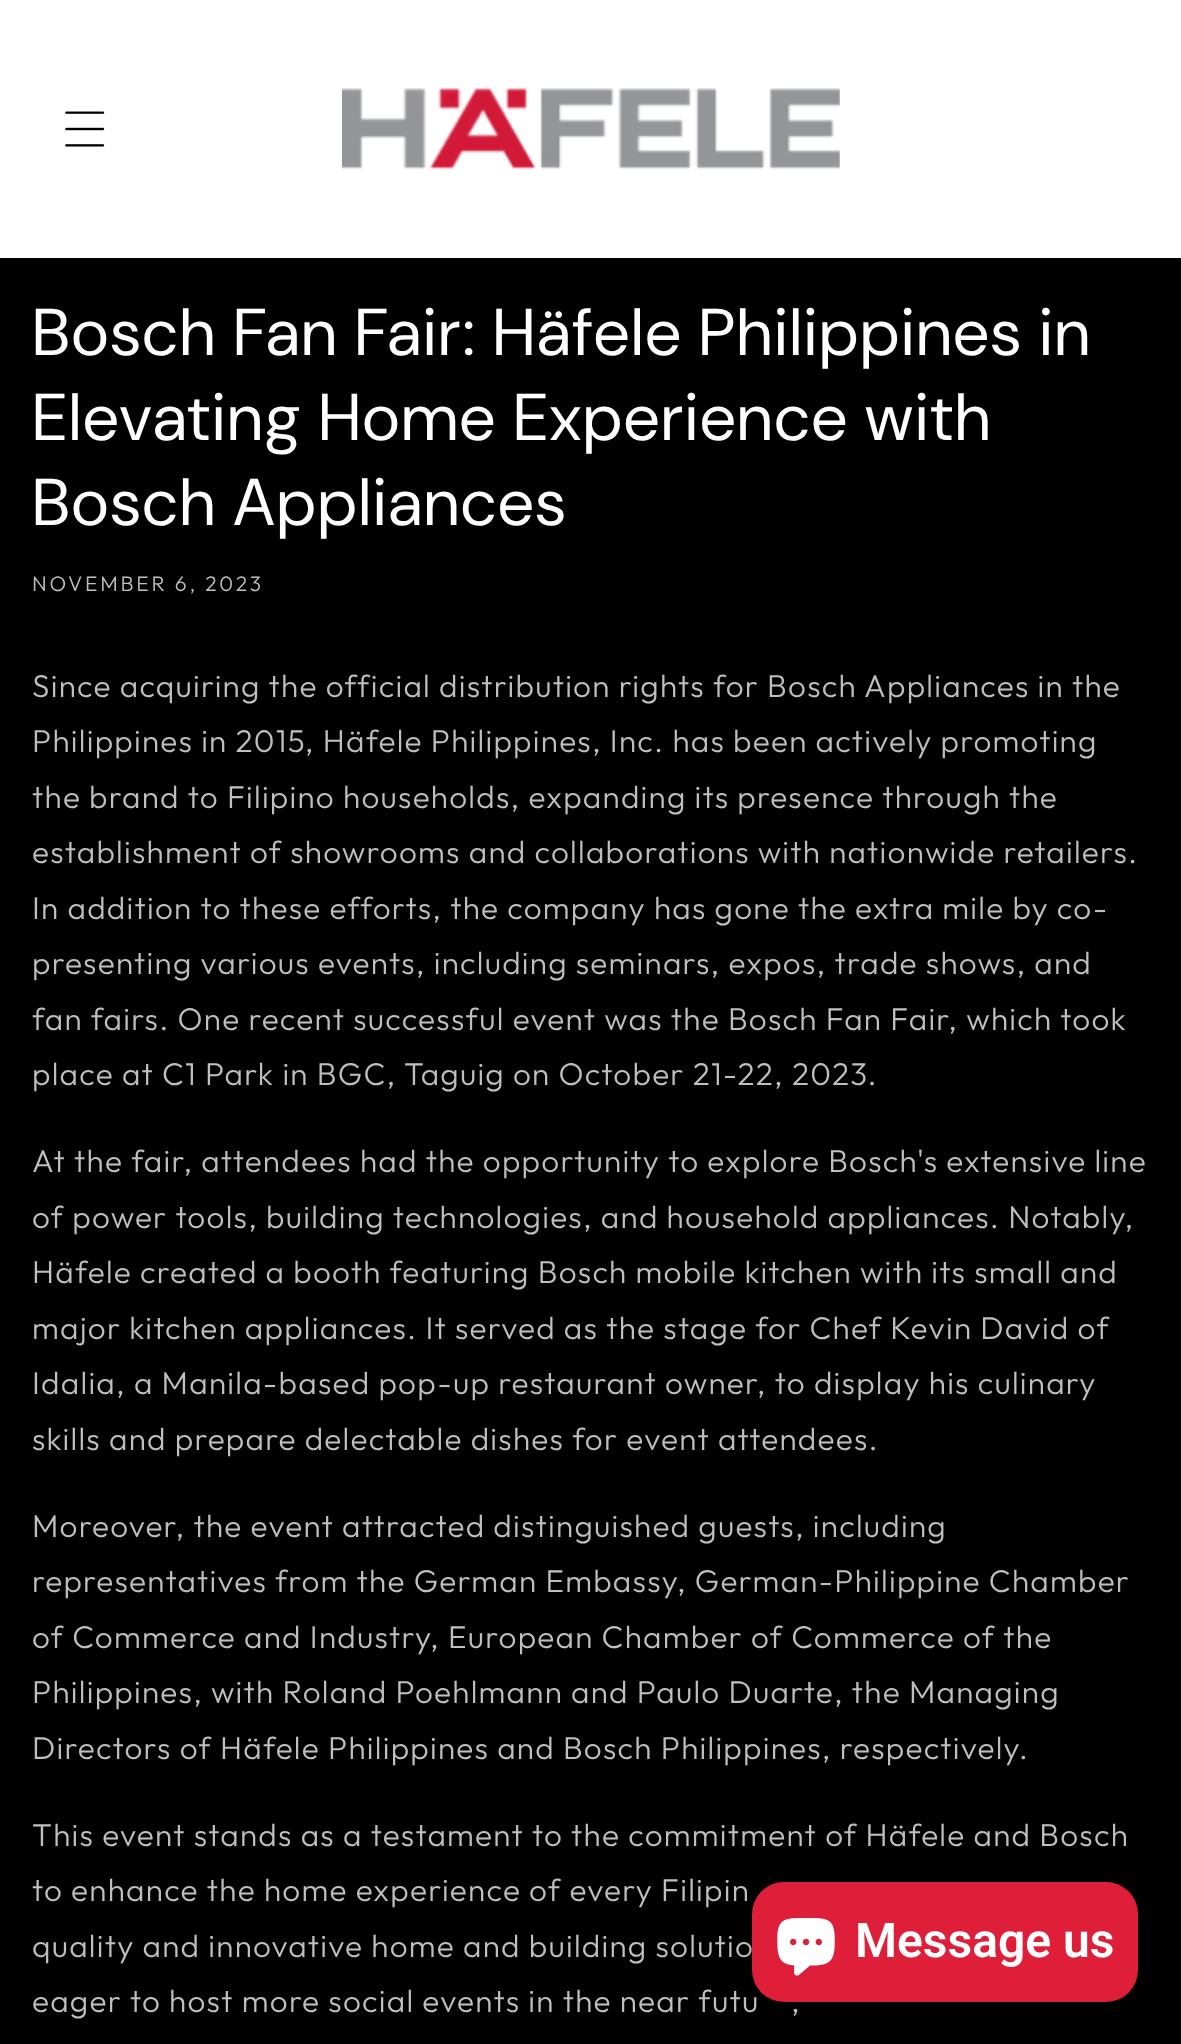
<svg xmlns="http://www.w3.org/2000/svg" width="1181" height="2044">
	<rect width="100%" height="100%" fill="#000000" />
	<rect x="0" y="0" width="1181" height="258" fill="#FFFFFF" />
	<image x="65" y="111" width="40" height="36" href="assets/img1.png" />
	<image x="342" y="88" width="498" height="82" href="assets/img2.png" />
	<g font-family="DM Sans" font-size="66" letter-spacing="1.3" fill="#FFFFFF">
		<text x="32" y="355">Bosch Fan Fair: Häfele Philippines in</text>
		<text x="32" y="440">Elevating Home Experience with</text>
		<text x="32" y="525">Bosch Appliances</text>
	</g>
	<text x="32" y="591" font-family="Outfit" font-size="21" font-weight="300" letter-spacing="2.75" fill="#BFBFBF">NOVEMBER 6, 2023</text>
	<g font-family="Outfit" font-size="31.5" font-weight="300" letter-spacing="1.25" fill="#BFBFBF">
		<text x="32" y="697">Since acquiring the official distribution rights for Bosch Appliances in the</text>
		<text x="32" y="752">Philippines in 2015, Häfele Philippines, Inc. has been actively promoting</text>
		<text x="32" y="808">the brand to Filipino households, expanding its presence through the</text>
		<text x="32" y="863">establishment of showrooms and collaborations with nationwide retailers.</text>
		<text x="32" y="919">In addition to these efforts, the company has gone the extra mile by co-</text>
		<text x="32" y="974">presenting various events, including seminars, expos, trade shows, and</text>
		<text x="32" y="1030">fan fairs. One recent successful event was the Bosch Fan Fair, which took</text>
		<text x="32" y="1085">place at C1 Park in BGC, Taguig on October 21-22, 2023.</text>
		<text x="32" y="1172">At the fair, attendees had the opportunity to explore Bosch's extensive line</text>
		<text x="32" y="1228">of power tools, building technologies, and household appliances. Notably,</text>
		<text x="32" y="1283">Häfele created a booth featuring Bosch mobile kitchen with its small and</text>
		<text x="32" y="1339">major kitchen appliances. It served as the stage for Chef Kevin David of</text>
		<text x="32" y="1394">Idalia, a Manila-based pop-up restaurant owner, to display his culinary</text>
		<text x="32" y="1450">skills and prepare delectable dishes for event attendees.</text>
		<text x="32" y="1537">Moreover, the event attracted distinguished guests, including</text>
		<text x="32" y="1592">representatives from the German Embassy, German-Philippine Chamber</text>
		<text x="32" y="1648">of Commerce and Industry, European Chamber of Commerce of the</text>
		<text x="32" y="1703">Philippines, with Roland Poehlmann and Paulo Duarte, the Managing</text>
		<text x="32" y="1759">Directors of Häfele Philippines and Bosch Philippines, respectively.</text>
		<text x="32" y="1846">This event stands as a testament to the commitment of Häfele and Bosch</text>
		<text x="32" y="1901">to enhance the home experience of every Filipin</text>
		<text x="32" y="1957">quality and innovative home and building solutio</text>
		<text x="32" y="2012">eager to host more social events in the near futu</text>
		<text x="791" y="2012">,</text>
	</g>
	<rect x="752" y="1882" width="386" height="120" rx="32" fill="#000000" fill-opacity="0.15" filter="blur(5px)" />
	<rect x="752" y="1882" width="386" height="120" rx="32" fill="#DF1E39" />
	<image x="777" y="1918" width="58" height="58" href="assets/img3.png" />
	<text x="855" y="1957" font-family="Roboto" font-size="48" font-weight="600" fill="#FFFFFF">Message us</text>
</svg>
